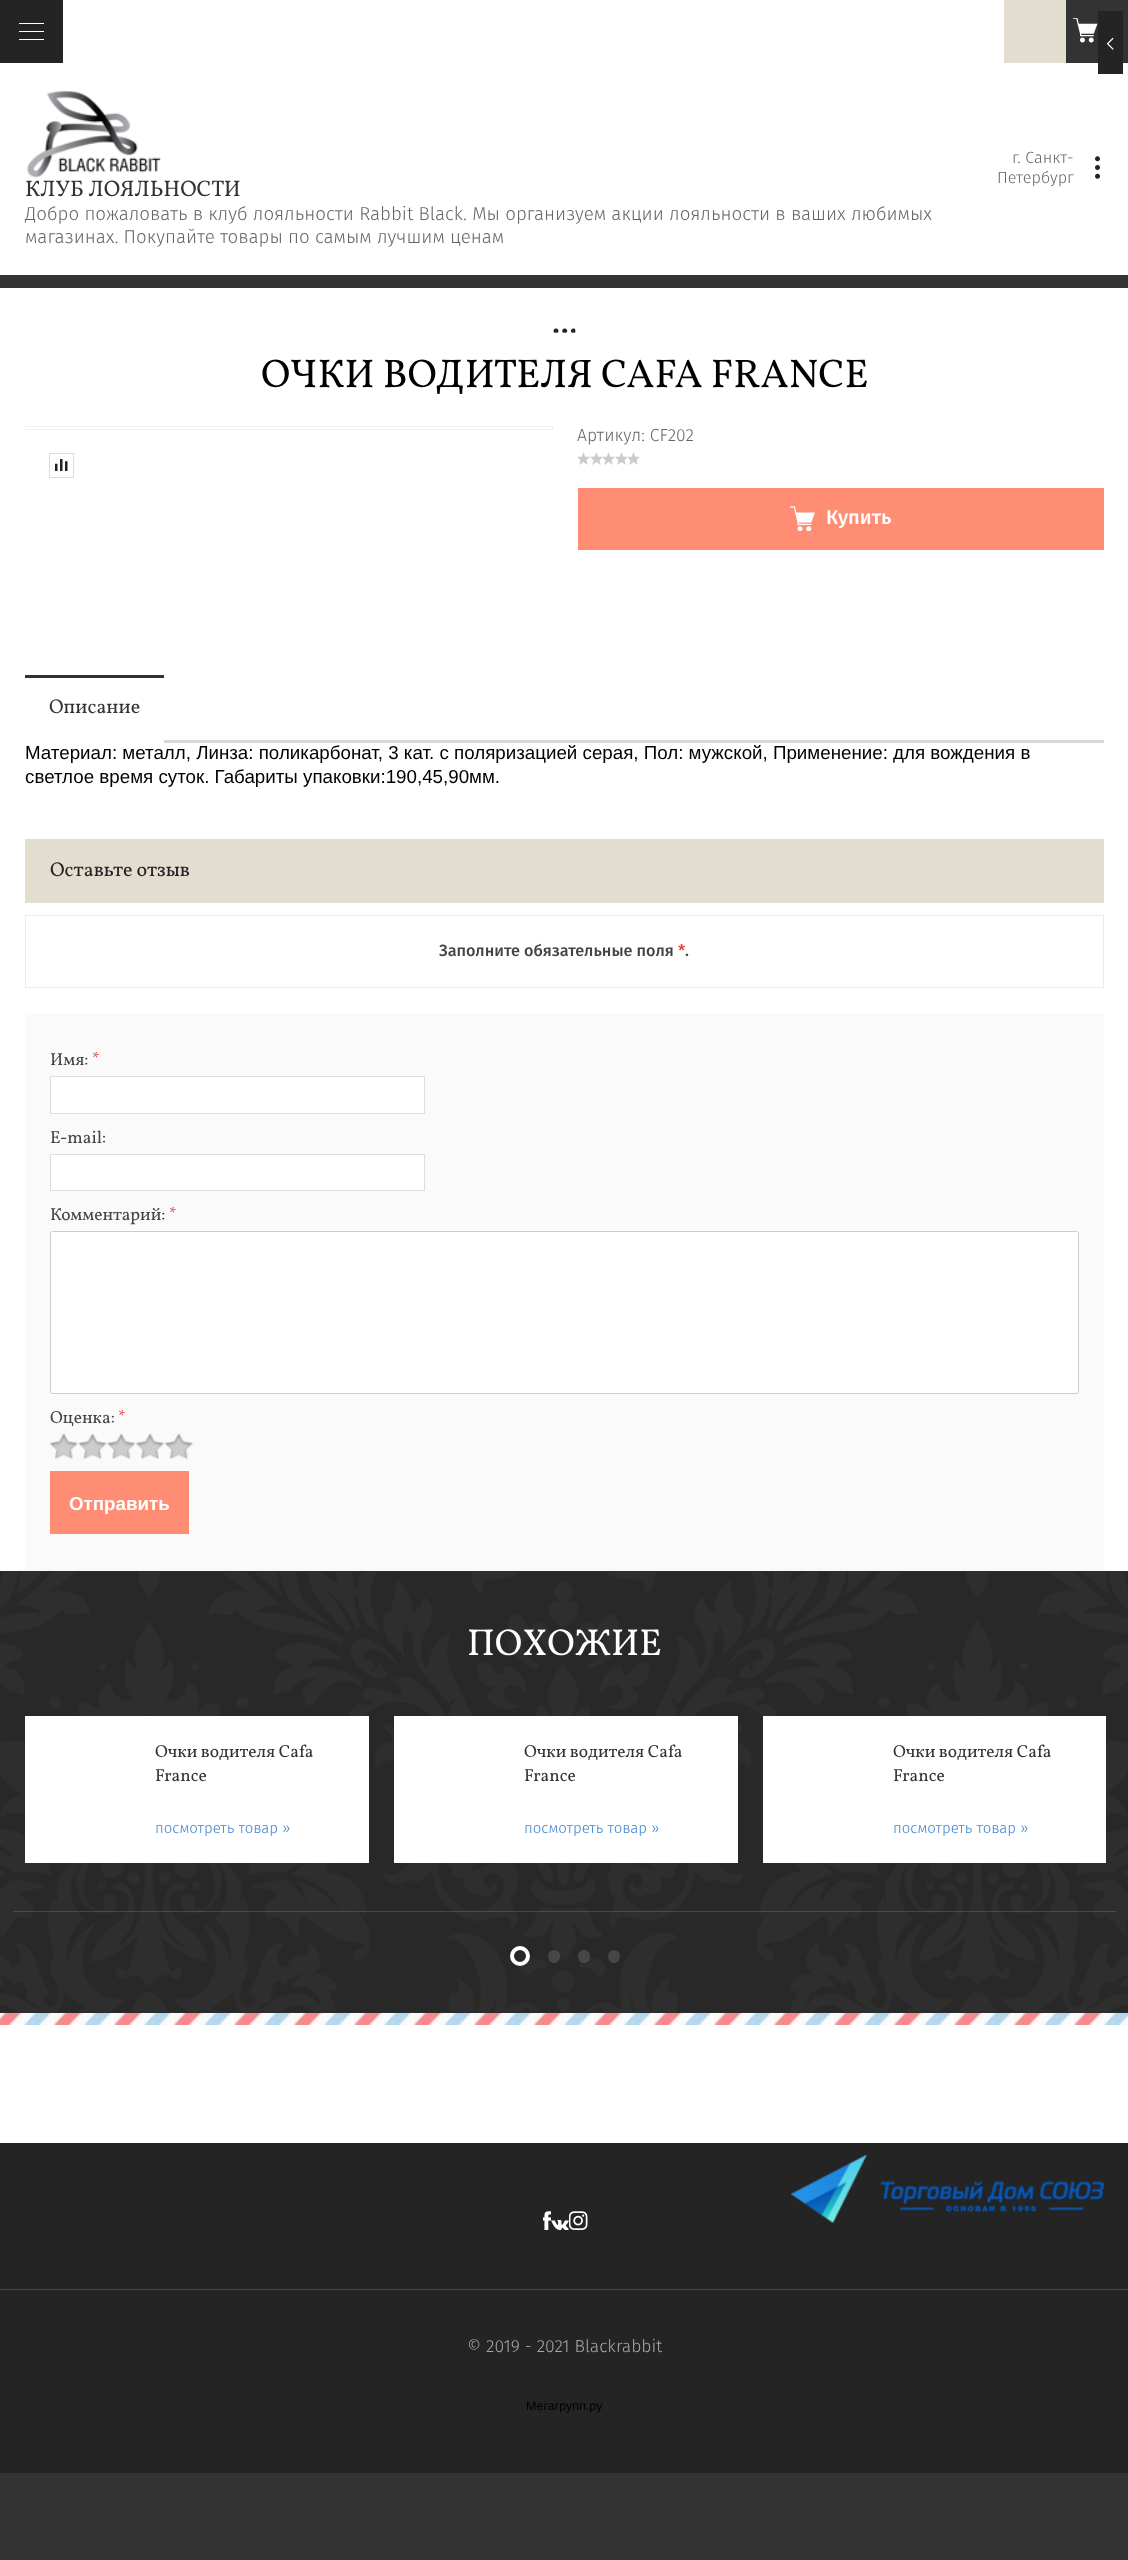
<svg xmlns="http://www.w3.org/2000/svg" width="1128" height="2560">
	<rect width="100%" height="100%" fill="#333333" />
	<rect x="63" y="0" width="941" height="63" fill="#FFFFFF" />
	<rect x="0" y="0" width="63" height="63" fill="#242424" />
	<rect x="19" y="23" width="25" height="1" fill="#FFFFFF" />
	<rect x="19" y="31" width="25" height="1" fill="#FFFFFF" />
	<rect x="19" y="39" width="25" height="1" fill="#FFFFFF" />
	<rect x="1004" y="0" width="62" height="63" fill="#E2DDCE" />
	<image x="1073" y="18" width="25" height="25" href="assets/img1.png" />
	<rect x="0" y="63" width="1128" height="212" fill="#FFFFFF" />
	<rect x="1098" y="11" width="25" height="63" fill="#242424" />
	<image x="1106" y="37" width="8" height="13" href="assets/img2.png" />
	<g font-family="Fira Sans" font-size="16.25" font-weight="300" fill="#666666">
		<text x="1012" y="163">г. Санкт-</text>
		<text x="997" y="183">Петербург</text>
	</g>
	<image x="1095" y="156" width="5" height="23" href="assets/img3.png" />
	<image x="27" y="91" width="135" height="87" href="assets/img4.png" />
	<text x="25" y="196" font-family="Vollkorn" font-size="22.5" fill="#333333">КЛУБ ЛОЯЛЬНОСТИ</text>
	<g font-family="Fira Sans" font-size="18.75" font-weight="300" fill="#666666">
		<text x="25" y="220">Добро пожаловать в клуб лояльности Rabbit Black. Мы организуем акции лояльности в ваших любимых</text>
		<text x="25" y="243">магазинах. Покупайте товары по самым лучшим ценам</text>
	</g>
	<rect x="0" y="288" width="1128" height="1283" fill="#FFFFFF" />
	<image x="553" y="328" width="23" height="5" href="assets/img5.png" />
	<text x="261" y="387" font-family="Vollkorn" font-size="40" fill="#000000">ОЧКИ ВОДИТЕЛЯ CAFA FRANCE</text>
	<rect x="25.5" y="426.5" width="527" height="3" fill="none" stroke="#F1F1F1" />
	<rect x="49.5" y="453.5" width="24" height="24" fill="none" stroke="#E2DDCE" />
	<image x="55" y="459" width="13" height="12" href="assets/img6.png" />
	<text x="577" y="441" font-family="Fira Sans" font-size="17.5" font-weight="300" fill="#666666">Артикул: CF202</text>
	<image x="577" y="452" width="63" height="13" href="assets/img7.png" />
	<rect x="578" y="488" width="526" height="62" fill="#FF8D73" />
	<image x="790" y="506" width="25" height="25" href="assets/img8.png" />
	<text x="826" y="524" font-family="Fira Sans" font-size="20" font-weight="500" fill="#FFFFFF">Купить</text>
	<rect x="164" y="740" width="940" height="3" fill="#D8D8D8" />
	<rect x="25" y="675" width="139" height="3" fill="#333333" />
	<text x="49" y="713" font-family="Vollkorn" font-size="20" fill="#333333">Описание</text>
	<g font-family="Liberation Sans" font-size="18.75" fill="#000000">
		<text x="25" y="759">Материал: металл, Линза: поликарбонат, 3 кат. с поляризацией серая, Пол: мужской, Применение: для вождения в</text>
		<text x="25" y="783">светлое время суток. Габариты упаковки:190,45,90мм.</text>
	</g>
	<rect x="25" y="839" width="1079" height="64" fill="#E2DDCE" />
	<text x="50" y="876" font-family="Vollkorn" font-size="20" fill="#222222">Оставьте отзыв</text>
	<rect x="25.5" y="915.5" width="1078" height="72" fill="none" stroke="#EAEAEA" />
	<text x="439" y="956" font-family="Fira Sans" font-size="16.25" font-weight="500" fill="#444444">Заполните обязательные поля</text>
	<text x="678" y="956" font-family="Fira Sans" font-size="16.25" font-weight="500" fill="#EB3C3C">*</text>
	<text x="685" y="956" font-family="Fira Sans" font-size="16.25" font-weight="500" fill="#444444">.</text>
	<rect x="25" y="1013" width="1079" height="558" fill="#FAFAFA" />
	<text x="50" y="1065" font-family="Vollkorn" font-size="17.5" fill="#444444">Имя:</text>
	<text x="92" y="1065" font-family="Vollkorn" font-size="17.5" fill="#EB3C3C">*</text>
	<rect x="50.5" y="1076.5" width="374" height="37" fill="#FFFFFF" stroke="#DDDDDD" />
	<text x="50" y="1143" font-family="Vollkorn" font-size="17.5" fill="#444444">E-mail:</text>
	<rect x="50.5" y="1154.5" width="374" height="36" fill="#FFFFFF" stroke="#DDDDDD" />
	<text x="50" y="1220" font-family="Vollkorn" font-size="17.5" fill="#444444">Комментарий:</text>
	<text x="169" y="1220" font-family="Vollkorn" font-size="17.5" fill="#EB3C3C">*</text>
	<rect x="50.5" y="1231.5" width="1028" height="162" rx="2" fill="#FFFFFF" stroke="#CCCCCC" />
	<text x="50" y="1423" font-family="Vollkorn" font-size="17.5" fill="#444444">Оценка:</text>
	<text x="118" y="1423" font-family="Vollkorn" font-size="17.5" fill="#EB3C3C">*</text>
	<image x="50" y="1433" width="144" height="26" href="assets/img9.png" />
	<rect x="50" y="1471" width="139" height="63" fill="#FF8D73" />
	<text x="69" y="1510" font-family="Liberation Sans" font-size="18.75" font-weight="700" fill="#FFFFFF">Отправить</text>
	<rect x="0" y="1571" width="1128" height="442" fill="#2C2C2C" />
	<image x="0" y="1572" width="1128" height="440" href="assets/img10.png" />
	<text x="467" y="1655" font-family="Vollkorn" font-size="37.5" fill="#FFFFFF">ПОХОЖИЕ</text>
	<rect x="13" y="1911" width="1103" height="1" fill="#FFFFFF" fill-opacity="0.14" />
	<rect x="25" y="1716" width="344" height="147" fill="#FFFFFF" />
	<g font-family="Vollkorn" font-size="17.5" fill="#333333">
		<text x="155" y="1757">Очки водителя Cafa</text>
		<text x="155" y="1781">France</text>
	</g>
	<text x="155" y="1833" font-family="Fira Sans" font-size="15" font-weight="300" fill="#3B82D3">посмотреть товар »</text>
	<rect x="394" y="1716" width="344" height="147" fill="#FFFFFF" />
	<g font-family="Vollkorn" font-size="17.5" fill="#333333">
		<text x="524" y="1757">Очки водителя Cafa</text>
		<text x="524" y="1781">France</text>
	</g>
	<text x="524" y="1833" font-family="Fira Sans" font-size="15" font-weight="300" fill="#3B82D3">посмотреть товар »</text>
	<rect x="763" y="1716" width="343" height="147" fill="#FFFFFF" />
	<g font-family="Vollkorn" font-size="17.5" fill="#333333">
		<text x="893" y="1757">Очки водителя Cafa</text>
		<text x="893" y="1781">France</text>
	</g>
	<text x="893" y="1833" font-family="Fira Sans" font-size="15" font-weight="300" fill="#3B82D3">посмотреть товар »</text>
	<circle cx="520" cy="1956" r="8" fill="none" stroke="#FFFFFF" stroke-width="4" />
	<rect x="548" y="1950" width="12" height="13" rx="6" fill="#FFFFFF" fill-opacity="0.14" />
	<rect x="578" y="1950" width="12" height="13" rx="6" fill="#FFFFFF" fill-opacity="0.14" />
	<rect x="608" y="1950" width="12" height="13" rx="6" fill="#464646" />
	<rect x="0" y="2025" width="1128" height="118" fill="#FFFFFF" />
	<image x="0" y="2013" width="1128" height="12" href="assets/img11.png" />
	<rect x="0" y="2143" width="1128" height="330" fill="#242424" />
	<rect x="0" y="2289" width="1128" height="1" fill="#474747" />
	<image x="543" y="2211" width="8" height="19" href="assets/img12.png" />
	<image x="551" y="2220" width="18" height="10" href="assets/img13.png" />
	<image x="569" y="2211" width="19" height="19" href="assets/img14.png" />
	<image x="791" y="2155" width="313" height="68" href="assets/img15.png" />
	<text x="467" y="2352" font-family="Fira Sans" font-size="17.5" font-weight="300" fill="#A7A7A7">© 2019 - 2021 Blackrabbit</text>
	<text x="526" y="2410" font-family="Liberation Sans" font-size="12.5" fill="#000000">Мегагрупп.ру</text>
</svg>
